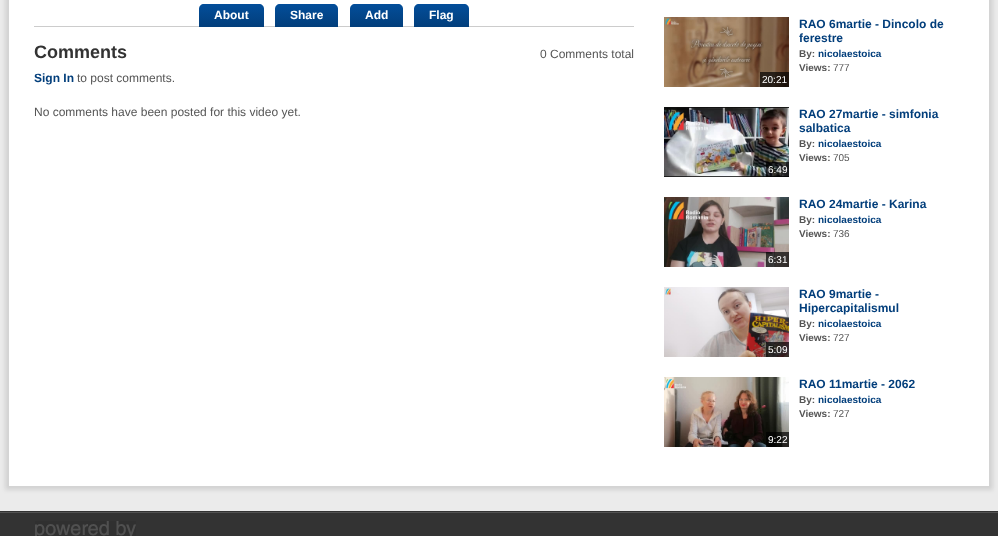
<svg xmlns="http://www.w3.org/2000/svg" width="998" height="536">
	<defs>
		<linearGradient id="g1" gradientUnits="userSpaceOnUse" x1="232" y1="4" x2="232" y2="27"><stop offset="0" stop-color="#034E9A" /><stop offset="1" stop-color="#023E7B" /></linearGradient>
		<linearGradient id="g2" gradientUnits="userSpaceOnUse" x1="307" y1="4" x2="307" y2="27"><stop offset="0" stop-color="#034E9A" /><stop offset="1" stop-color="#023E7B" /></linearGradient>
		<linearGradient id="g3" gradientUnits="userSpaceOnUse" x1="377" y1="4" x2="377" y2="27"><stop offset="0" stop-color="#034E9A" /><stop offset="1" stop-color="#023E7B" /></linearGradient>
		<linearGradient id="g4" gradientUnits="userSpaceOnUse" x1="442" y1="4" x2="442" y2="27"><stop offset="0" stop-color="#034E9A" /><stop offset="1" stop-color="#023E7B" /></linearGradient>
	</defs>
	<rect width="100%" height="100%" fill="#EBEBEB" />
	<rect x="5" y="-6" width="988" height="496" fill="#010101" fill-opacity="0.1" filter="blur(2px)" />
	<rect x="9" y="0" width="980" height="486" fill="#FFFFFF" />
	<rect x="34" y="26" width="600" height="1" fill="#CCCCCC" />
	<path d="M204 4H259C262 4 264 6 264 9V27H199V9C199 6 201 4 204 4Z" fill="url(#g1)" />
	<text x="214" y="19" font-family="Liberation Sans" font-size="12" font-weight="700" fill="#FFFFFF">About</text>
	<path d="M280 4H333C336 4 338 6 338 9V27H275V9C275 6 277 4 280 4Z" fill="url(#g2)" />
	<text x="290" y="19" font-family="Liberation Sans" font-size="12" font-weight="700" fill="#FFFFFF">Share</text>
	<path d="M355 4H398C401 4 403 6 403 9V27H350V9C350 6 352 4 355 4Z" fill="url(#g3)" />
	<text x="365" y="19" font-family="Liberation Sans" font-size="12" font-weight="700" fill="#FFFFFF">Add</text>
	<path d="M419 4H464C467 4 469 6 469 9V27H414V9C414 6 416 4 419 4Z" fill="url(#g4)" />
	<text x="429" y="19" font-family="Liberation Sans" font-size="12" font-weight="700" fill="#FFFFFF">Flag</text>
	<text x="34" y="58" font-family="Liberation Sans" font-size="18" font-weight="700" fill="#333333">Comments</text>
	<text x="540" y="58" font-family="Liberation Sans" font-size="12" fill="#555555">0 Comments total</text>
	<text x="34" y="82" font-family="Liberation Sans" font-size="12" font-weight="700" fill="#023E7B">Sign In</text>
	<g font-family="Liberation Sans" font-size="12" fill="#555555">
		<text x="77" y="82">to post comments.</text>
		<text x="34" y="116">No comments have been posted for this video yet.</text>
	</g>
	<g font-family="Liberation Sans" font-size="12" font-weight="700" fill="#023E7B">
		<text x="799" y="28">RAO 6martie - Dincolo de</text>
		<text x="799" y="42">ferestre</text>
	</g>
	<text x="799" y="57" font-family="Liberation Sans" font-size="10" font-weight="700" fill="#555555">By:</text>
	<text x="818" y="57" font-family="Liberation Sans" font-size="10" font-weight="700" fill="#023E7B">nicolaestoica</text>
	<text x="799" y="71" font-family="Liberation Sans" font-size="10" font-weight="700" fill="#555555">Views:</text>
	<text x="833" y="71" font-family="Liberation Sans" font-size="10" fill="#555555">777</text>
	<image x="664" y="17" width="125" height="70" href="assets/img1.png" />
	<rect x="760" y="72" width="29" height="15" fill="#000000" fill-opacity="0.7" />
	<text x="762" y="83" font-family="Liberation Sans" font-size="10" fill="#FFFFFF">20:21</text>
	<g font-family="Liberation Sans" font-size="12" font-weight="700" fill="#023E7B">
		<text x="799" y="118">RAO 27martie - simfonia</text>
		<text x="799" y="132">salbatica</text>
	</g>
	<text x="799" y="147" font-family="Liberation Sans" font-size="10" font-weight="700" fill="#555555">By:</text>
	<text x="818" y="147" font-family="Liberation Sans" font-size="10" font-weight="700" fill="#023E7B">nicolaestoica</text>
	<text x="799" y="161" font-family="Liberation Sans" font-size="10" font-weight="700" fill="#555555">Views:</text>
	<text x="833" y="161" font-family="Liberation Sans" font-size="10" fill="#555555">705</text>
	<image x="664" y="107" width="125" height="70" href="assets/img2.png" />
	<rect x="766" y="162" width="23" height="15" fill="#000000" fill-opacity="0.7" />
	<text x="768" y="173" font-family="Liberation Sans" font-size="10" fill="#FFFFFF">6:49</text>
	<text x="799" y="208" font-family="Liberation Sans" font-size="12" font-weight="700" fill="#023E7B">RAO 24martie - Karina</text>
	<text x="799" y="223" font-family="Liberation Sans" font-size="10" font-weight="700" fill="#555555">By:</text>
	<text x="818" y="223" font-family="Liberation Sans" font-size="10" font-weight="700" fill="#023E7B">nicolaestoica</text>
	<text x="799" y="237" font-family="Liberation Sans" font-size="10" font-weight="700" fill="#555555">Views:</text>
	<text x="833" y="237" font-family="Liberation Sans" font-size="10" fill="#555555">736</text>
	<image x="664" y="197" width="125" height="70" href="assets/img3.png" />
	<rect x="766" y="252" width="23" height="15" fill="#000000" fill-opacity="0.7" />
	<text x="768" y="263" font-family="Liberation Sans" font-size="10" fill="#FFFFFF">6:31</text>
	<g font-family="Liberation Sans" font-size="12" font-weight="700" fill="#023E7B">
		<text x="799" y="298">RAO 9martie -</text>
		<text x="799" y="312">Hipercapitalismul</text>
	</g>
	<text x="799" y="327" font-family="Liberation Sans" font-size="10" font-weight="700" fill="#555555">By:</text>
	<text x="818" y="327" font-family="Liberation Sans" font-size="10" font-weight="700" fill="#023E7B">nicolaestoica</text>
	<text x="799" y="341" font-family="Liberation Sans" font-size="10" font-weight="700" fill="#555555">Views:</text>
	<text x="833" y="341" font-family="Liberation Sans" font-size="10" fill="#555555">727</text>
	<image x="664" y="287" width="125" height="70" href="assets/img4.png" />
	<rect x="766" y="342" width="23" height="15" fill="#000000" fill-opacity="0.7" />
	<text x="768" y="353" font-family="Liberation Sans" font-size="10" fill="#FFFFFF">5:09</text>
	<text x="799" y="388" font-family="Liberation Sans" font-size="12" font-weight="700" fill="#023E7B">RAO 11martie - 2062</text>
	<text x="799" y="403" font-family="Liberation Sans" font-size="10" font-weight="700" fill="#555555">By:</text>
	<text x="818" y="403" font-family="Liberation Sans" font-size="10" font-weight="700" fill="#023E7B">nicolaestoica</text>
	<text x="799" y="417" font-family="Liberation Sans" font-size="10" font-weight="700" fill="#555555">Views:</text>
	<text x="833" y="417" font-family="Liberation Sans" font-size="10" fill="#555555">727</text>
	<image x="664" y="377" width="125" height="70" href="assets/img5.png" />
	<rect x="766" y="432" width="23" height="15" fill="#000000" fill-opacity="0.7" />
	<text x="768" y="443" font-family="Liberation Sans" font-size="10" fill="#FFFFFF">9:22</text>
	<rect x="0" y="511" width="998" height="25" fill="#333333" />
	<rect x="0" y="512" width="998" height="1" fill="#535353" />
	<image x="35" y="521" width="101" height="15" href="assets/img6.png" />
</svg>
